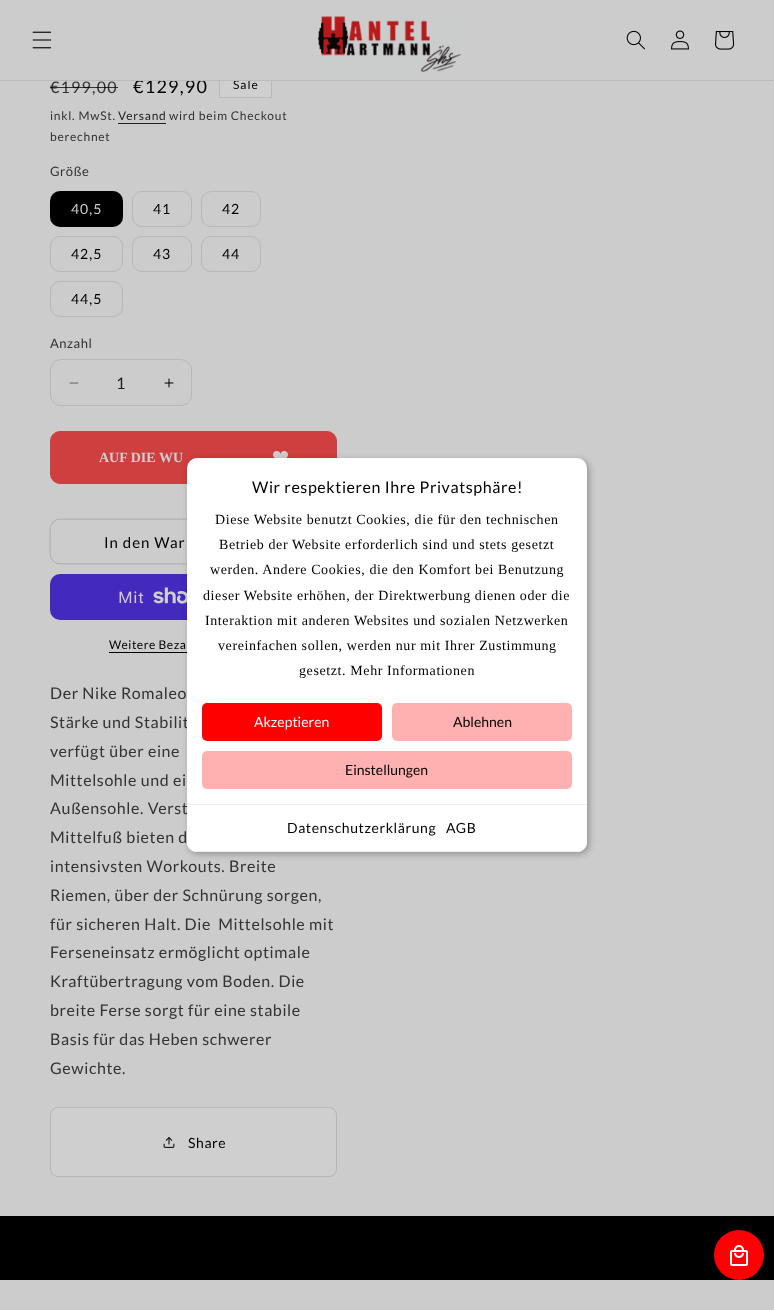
<svg xmlns="http://www.w3.org/2000/svg" width="774" height="1310">
	<defs>
		<clipPath id="clip1"><rect x="187" y="458" width="400" height="394" rx="10" /></clipPath>
	</defs>
	<rect width="100%" height="100%" fill="#CCCCCC" />
	<rect x="220" y="81" width="51" height="16" fill="#CFCFCF" />
	<rect x="219.5" y="73.5" width="52" height="24" fill="none" stroke="#BABABA" />
	<rect x="219" y="73" width="53" height="7" fill="#CCCCCC" />
	<text x="133" y="93" font-family="Lato" font-size="18" letter-spacing="1.25" fill="#000000">€129,90</text>
	<text x="233" y="89" font-family="Lato" font-size="12" letter-spacing="1" fill="#000000">Sale</text>
	<rect x="0" y="80" width="774" height="1" fill="#BCBCBC" />
	<image x="32" y="31" width="20" height="18" href="assets/img1.png" />
	<image x="318" y="16" width="144" height="57" href="assets/img2.png" />
	<image x="626" y="30" width="19" height="20" href="assets/img3.png" />
	<image x="671" y="30" width="18" height="20" href="assets/img4.png" />
	<image x="715" y="31" width="20" height="19" href="assets/img5.png" />
	<text x="50" y="93" font-family="Lato" font-size="16" letter-spacing="1.25" fill="#333333">€199,00</text>
	<rect x="50" y="87" width="68" height="1" fill="#000000" fill-opacity="0.75" />
	<text x="50" y="120" font-family="Lato" font-size="12" letter-spacing="0.75" fill="#333333">inkl. MwSt.</text>
	<text x="118" y="120" font-family="Lato" font-size="12" letter-spacing="0.75" fill="#1F1F1F">Versand</text>
	<rect x="118" y="123" width="48" height="1" fill="#1F1F1F" />
	<g font-family="Lato" font-size="12" letter-spacing="0.75" fill="#333333">
		<text x="169" y="120">wird beim Checkout</text>
		<text x="50" y="141">berechnet</text>
	</g>
	<text x="50" y="176" font-family="Lato" font-size="13" letter-spacing="0.5" fill="#333333">Größe</text>
	<rect x="50" y="191" width="73" height="36" rx="10" fill="#000000" />
	<rect x="50.5" y="191.5" width="72" height="35" rx="9.5" fill="none" stroke="#000000" stroke-opacity="0.1" />
	<text x="71" y="214" font-family="Lato" font-size="14" letter-spacing="1" fill="#CFCFCF">40,5</text>
	<rect x="132.5" y="191.5" width="59" height="35" rx="9.5" fill="none" stroke="#B8B8B8" />
	<text x="153" y="214" font-family="Lato" font-size="14" letter-spacing="1" fill="#000000">41</text>
	<rect x="201.5" y="191.5" width="59" height="35" rx="9.5" fill="none" stroke="#B8B8B8" />
	<text x="222" y="214" font-family="Lato" font-size="14" letter-spacing="1" fill="#000000">42</text>
	<rect x="50.5" y="236.5" width="72" height="35" rx="9.5" fill="none" stroke="#B8B8B8" />
	<text x="71" y="259" font-family="Lato" font-size="14" letter-spacing="1" fill="#000000">42,5</text>
	<rect x="132.5" y="236.5" width="59" height="35" rx="9.5" fill="none" stroke="#B8B8B8" />
	<text x="153" y="259" font-family="Lato" font-size="14" letter-spacing="1" fill="#000000">43</text>
	<rect x="201.5" y="236.5" width="59" height="35" rx="9.5" fill="none" stroke="#B8B8B8" />
	<text x="222" y="259" font-family="Lato" font-size="14" letter-spacing="1" fill="#000000">44</text>
	<rect x="50.5" y="281.5" width="72" height="35" rx="9.5" fill="none" stroke="#B8B8B8" />
	<text x="71" y="304" font-family="Lato" font-size="14" letter-spacing="1" fill="#000000">44,5</text>
	<text x="50" y="348" font-family="Lato" font-size="13" letter-spacing="0.5" fill="#333333">Anzahl</text>
	<image x="69" y="382" width="10" height="2" href="assets/img6.png" />
	<image x="164" y="378" width="10" height="10" href="assets/img7.png" />
	<rect x="50.5" y="359.5" width="141" height="46" rx="10.5" fill="none" stroke="#B8B8B8" />
	<text x="116" y="389" font-family="Lato" font-size="16" fill="#1F1F1F">1</text>
	<rect x="50.5" y="431.5" width="286" height="52" rx="9.5" fill="#CF3F3F" stroke="#CF3F3F" />
	<text x="99" y="462" font-family="Liberation Serif" font-size="14" font-weight="700" fill="#CFCFCF">AUF DIE WU</text>
	<image x="273" y="451" width="15" height="7" href="assets/img8.png" />
	<rect x="50.15" y="519.15" width="286.7" height="44.7" rx="9.85" fill="none" stroke="#666666" stroke-width="0.3" />
	<text x="104" y="548" font-family="Lato" font-size="15" letter-spacing="1" fill="#000000">In den War</text>
	<rect x="50" y="574" width="287" height="46" rx="10" fill="#4429BF" />
	<text x="118" y="603" font-family="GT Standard" font-size="16" letter-spacing="0.6" fill="#CFCFCF">Mit</text>
	<image x="153" y="587" width="34" height="17" href="assets/img9.png" />
	<text x="109" y="649" font-family="Lato" font-size="12" letter-spacing="0.5" fill="#000000">Weitere Beza</text>
	<rect x="109" y="652" width="78" height="1" fill="#000000" />
	<g font-family="Lato" font-size="16" letter-spacing="0.6" fill="#333333">
		<text x="50" y="699">Der Nike Romaleo</text>
		<text x="50" y="728">Stärke und Stabilit</text>
		<text x="50" y="757">verfügt über eine</text>
		<text x="50" y="786">Mittelsohle und ei</text>
		<text x="50" y="814">Außensohle. Verst</text>
		<text x="50" y="843">Mittelfuß bieten d</text>
		<text x="50" y="872">intensivsten Workouts. Breite</text>
		<text x="50" y="901">Riemen, über der Schnürung sorgen,</text>
		<text x="50" y="930" xml:space="preserve">für sicheren Halt. Die  Mittelsohle mit</text>
		<text x="50" y="958">Ferseneinsatz ermöglicht optimale</text>
		<text x="50" y="987">Kraftübertragung vom Boden. Die</text>
		<text x="50" y="1016">breite Ferse sorgt für eine stabile</text>
		<text x="50" y="1045">Basis für das Heben schwerer</text>
		<text x="50" y="1074">Gewichte.</text>
	</g>
	<rect x="50.5" y="1107.5" width="286" height="69" rx="7.5" fill="#CFCFCF" stroke="#B6B6B6" />
	<image x="163" y="1137" width="12" height="11" href="assets/img10.png" />
	<text x="188" y="1148" font-family="Lato" font-size="14" letter-spacing="0.6" fill="#000000">Share</text>
	<rect x="0" y="1216" width="774" height="64" fill="#000000" />
	<rect x="189" y="460" width="400" height="394" rx="10" fill="#000000" fill-opacity="0.15" filter="blur(3px)" />
	<rect x="189" y="460" width="400" height="394" rx="10" fill="#000000" fill-opacity="0.15" filter="blur(3px)" />
	<rect x="187" y="458" width="400" height="394" rx="10" fill="#FFFFFF" />
	<text x="252" y="493" font-family="Lato" font-size="16" letter-spacing="0.6" fill="#000000">Wir respektieren Ihre Privatsphäre!</text>
	<g font-family="Liberation Serif" font-size="14" letter-spacing="0.6" fill="#000000">
		<text x="215" y="524">Diese Website benutzt Cookies, die für den technischen</text>
		<text x="219" y="549">Betrieb der Website erforderlich sind und stets gesetzt</text>
		<text x="210" y="574">werden. Andere Cookies, die den Komfort bei Benutzung</text>
		<text x="203" y="600">dieser Website erhöhen, der Direktwerbung dienen oder die</text>
		<text x="205" y="625">Interaktion mit anderen Websites und sozialen Netzwerken</text>
		<text x="218" y="650">vereinfachen sollen, werden nur mit Ihrer Zustimmung</text>
		<text x="299" y="675">gesetzt. Mehr Informationen</text>
	</g>
	<rect x="202" y="703" width="180" height="38" rx="5" fill="#FF0000" />
	<text x="254" y="727" font-family="Lato" font-size="14" fill="#FFFFFF">Akzeptieren</text>
	<rect x="392" y="703" width="180" height="38" rx="5" fill="#FFB0B0" />
	<text x="453" y="727" font-family="Lato" font-size="14" fill="#000000">Ablehnen</text>
	<rect x="202" y="751" width="370" height="38" rx="5" fill="#FFB0B0" />
	<text x="345" y="775" font-family="Lato" font-size="14" fill="#000000">Einstellungen</text>
	<path d="M187 804H587V842C587 847.5 582.5 852 577 852H197C191.5 852 187 847.5 187 842Z" fill="#FFFFFF" />
	<rect x="187" y="804" width="400" height="1" fill="#EEEEEE" />
	<g clip-path="url(#clip1)">
		<rect x="187" y="851" width="400" height="1" fill="#EEEEEE" />
	</g>
	<g font-family="Lato" font-size="14" letter-spacing="0.6" fill="#000000">
		<text x="287" y="833">Datenschutzerklärung</text>
		<text x="446" y="833">AGB</text>
	</g>
	<circle cx="739" cy="1255" r="25" fill="#FF0004" />
	<image x="730" y="1245" width="18" height="21" href="assets/img11.png" />
</svg>
